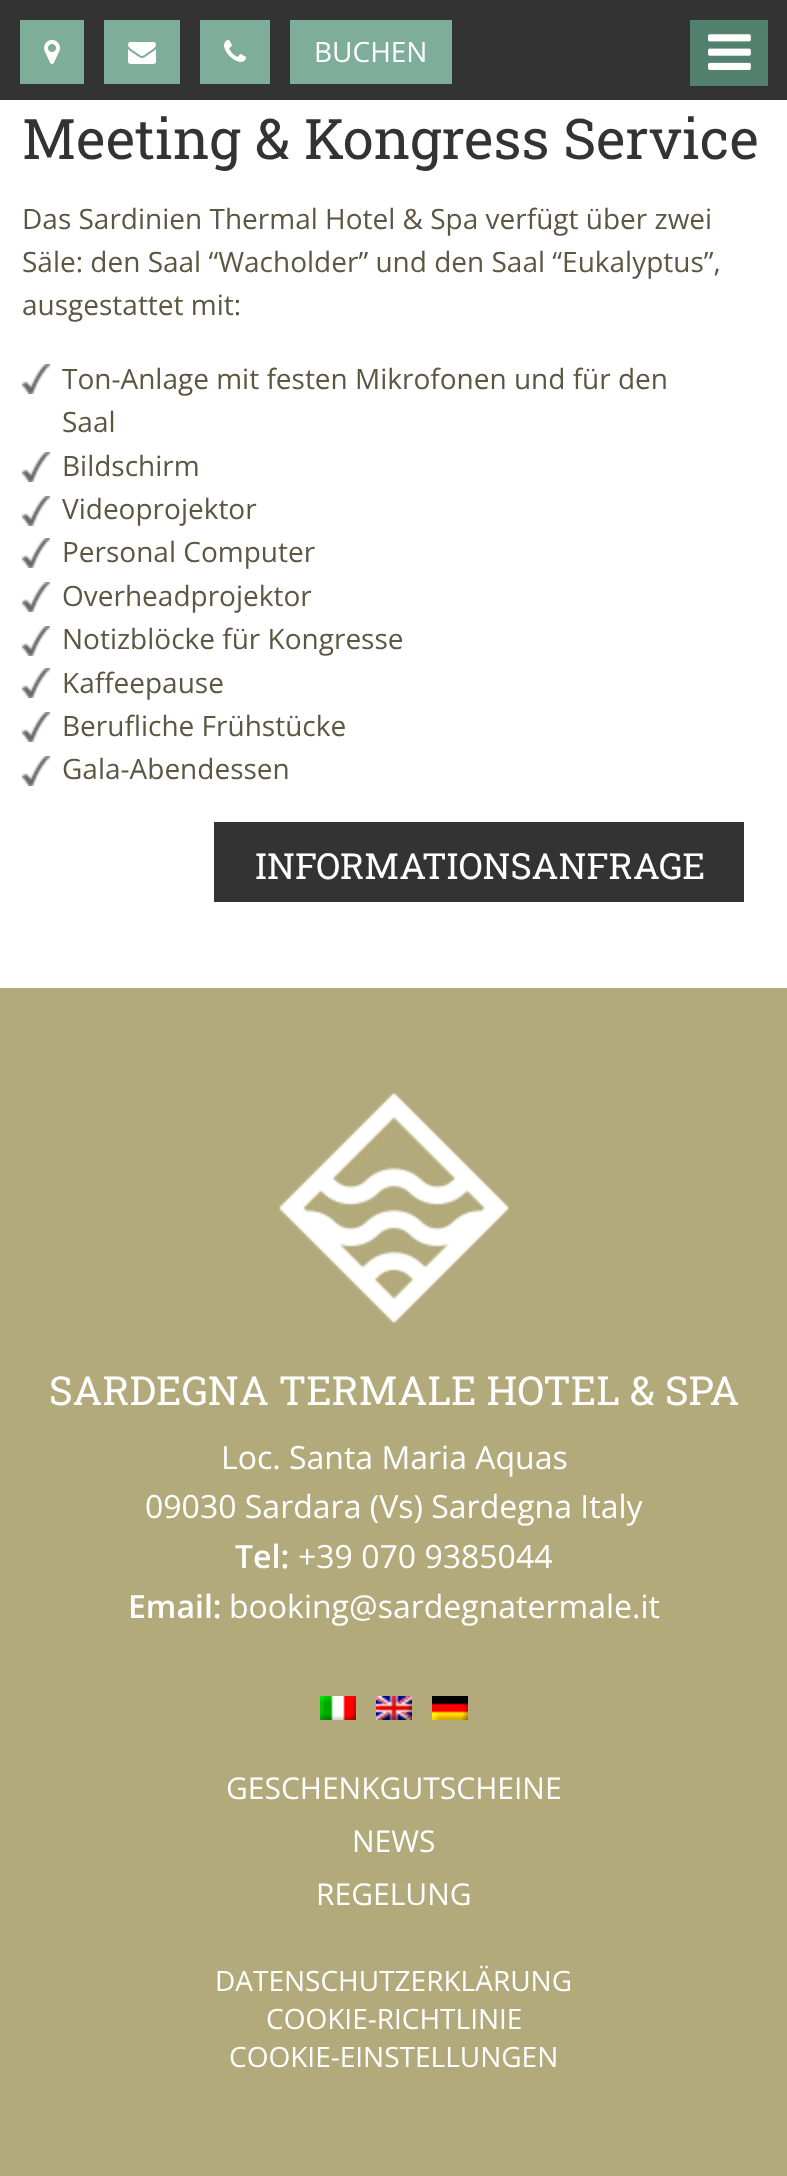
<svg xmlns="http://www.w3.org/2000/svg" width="787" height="2176">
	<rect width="100%" height="100%" fill="#FFFFFF" />
	<rect x="0" y="0" width="787" height="100" fill="#333333" />
	<rect x="20" y="20" width="64" height="64" fill="#7EAD9A" />
	<image x="44" y="40" width="16" height="24" href="assets/img1.png" />
	<rect x="104" y="20" width="76" height="64" fill="#7EAD9A" />
	<image x="128" y="42" width="28" height="22" href="assets/img2.png" />
	<rect x="200" y="20" width="70" height="64" fill="#7EAD9A" />
	<image x="224" y="40" width="22" height="22" href="assets/img3.png" />
	<rect x="290" y="20" width="162" height="64" fill="#7EAD9A" />
	<text x="314" y="62" font-family="Open Sans" font-size="28" fill="#FFFFFF">BUCHEN</text>
	<rect x="690" y="20" width="78" height="66" fill="#52816D" />
	<image x="708" y="34" width="43" height="36" href="assets/img4.png" />
	<text x="22" y="159" font-family="Roboto Slab" font-size="56" fill="#333333">Meeting &amp; Kongress Service</text>
	<g font-family="Open Sans" font-size="28" fill="#5B5743">
		<text x="22" y="229">Das Sardinien Thermal Hotel &amp; Spa verfügt über zwei</text>
		<text x="22" y="272">Säle: den Saal “Wacholder” und den Saal “Eukalyptus”,</text>
		<text x="22" y="315">ausgestattet mit:</text>
	</g>
	<image x="22" y="364" width="28" height="30" href="assets/img5.png" />
	<g font-family="Open Sans" font-size="28" fill="#5B5743">
		<text x="62" y="389">Ton-Anlage mit festen Mikrofonen und für den</text>
		<text x="62" y="432">Saal</text>
	</g>
	<image x="22" y="452" width="28" height="30" href="assets/img5.png" />
	<text x="62" y="476" font-family="Open Sans" font-size="28" fill="#5B5743">Bildschirm</text>
	<image x="22" y="496" width="28" height="30" href="assets/img5.png" />
	<text x="62" y="519" font-family="Open Sans" font-size="28" fill="#5B5743">Videoprojektor</text>
	<image x="22" y="538" width="28" height="30" href="assets/img5.png" />
	<text x="62" y="562" font-family="Open Sans" font-size="28" fill="#5B5743">Personal Computer</text>
	<image x="22" y="582" width="28" height="30" href="assets/img5.png" />
	<text x="62" y="606" font-family="Open Sans" font-size="28" fill="#5B5743">Overheadprojektor</text>
	<image x="22" y="626" width="28" height="30" href="assets/img5.png" />
	<text x="62" y="649" font-family="Open Sans" font-size="28" fill="#5B5743">Notizblöcke für Kongresse</text>
	<image x="22" y="668" width="28" height="30" href="assets/img5.png" />
	<text x="62" y="693" font-family="Open Sans" font-size="28" fill="#5B5743">Kaffeepause</text>
	<image x="22" y="712" width="28" height="30" href="assets/img5.png" />
	<text x="62" y="736" font-family="Open Sans" font-size="28" fill="#5B5743">Berufliche Frühstücke</text>
	<image x="22" y="756" width="28" height="30" href="assets/img5.png" />
	<text x="62" y="779" font-family="Open Sans" font-size="28" fill="#5B5743">Gala-Abendessen</text>
	<rect x="214" y="822" width="530" height="80" fill="#333333" />
	<text x="255" y="879" font-family="Roboto Slab" font-size="36" fill="#FFFFFF">INFORMATIONSANFRAGE</text>
	<rect x="0" y="988" width="787" height="1188" fill="#B2AA7B" />
	<image x="279" y="1093" width="230" height="230" href="assets/img6.png" />
	<text x="49" y="1405" font-family="Roboto Slab" font-size="40" fill="#FFFFFF">SARDEGNA TERMALE HOTEL &amp; SPA</text>
	<g font-family="Open Sans" font-size="32" fill="#FFFFFF">
		<text x="221" y="1469">Loc. Santa Maria Aquas</text>
		<text x="145" y="1518">09030 Sardara (Vs) Sardegna Italy</text>
	</g>
	<text x="235" y="1568" font-family="Open Sans" font-size="32" font-weight="600" fill="#FFFFFF">Tel:</text>
	<text x="298" y="1568" font-family="Open Sans" font-size="32" fill="#FFFFFF">+39 070 9385044</text>
	<text x="128" y="1618" font-family="Open Sans" font-size="32" font-weight="600" fill="#FFFFFF">Email:</text>
	<text x="229" y="1618" font-family="Open Sans" font-size="32" fill="#FFFFFF">booking@sardegnatermale.it</text>
	<image x="320" y="1696" width="36" height="24" href="assets/img7.png" />
	<image x="376" y="1696" width="36" height="24" href="assets/img8.png" />
	<image x="432" y="1696" width="36" height="24" href="assets/img9.png" />
	<g font-family="Open Sans" font-size="30" fill="#FFFFFF">
		<text x="226" y="1799">GESCHENKGUTSCHEINE</text>
		<text x="352" y="1852">NEWS</text>
		<text x="316" y="1905">REGELUNG</text>
	</g>
	<g font-family="Open Sans" font-size="28" fill="#FFFFFF">
		<text x="215" y="1991">DATENSCHUTZERKLÄRUNG</text>
		<text x="266" y="2029">COOKIE-RICHTLINIE</text>
		<text x="229" y="2067">COOKIE-EINSTELLUNGEN</text>
	</g>
</svg>
